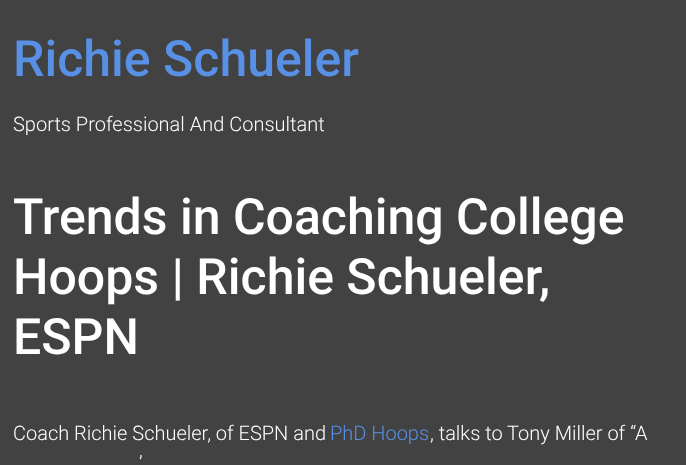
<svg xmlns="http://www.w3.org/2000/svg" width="686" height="465">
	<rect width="100%" height="100%" fill="#424242" />
	<text x="13" y="76" font-family="Roboto" font-size="50" font-weight="500" fill="#5890E5">Richie Schueler</text>
	<text x="13" y="131" font-family="Roboto" font-size="20" font-weight="300" fill="#FFFFFF">Sports Professional And Consultant</text>
	<g font-family="Roboto" font-size="50" font-weight="500" fill="#FFFFFF">
		<text x="13" y="234">Trends in Coaching College</text>
		<text x="13" y="294">Hoops | Richie Schueler,</text>
		<text x="13" y="354">ESPN</text>
	</g>
	<text x="13" y="440" font-family="Roboto" font-size="20" font-weight="300" fill="#FFFFFF">Coach Richie Schueler, of ESPN and</text>
	<text x="330" y="440" font-family="Roboto" font-size="20" font-weight="300" fill="#5890E5">PhD Hoops</text>
	<g font-family="Roboto" font-size="20" font-weight="300" fill="#FFFFFF">
		<text x="430" y="440">, talks to Tony Miller of “A</text>
		<text x="139" y="470">’</text>
	</g>
</svg>
